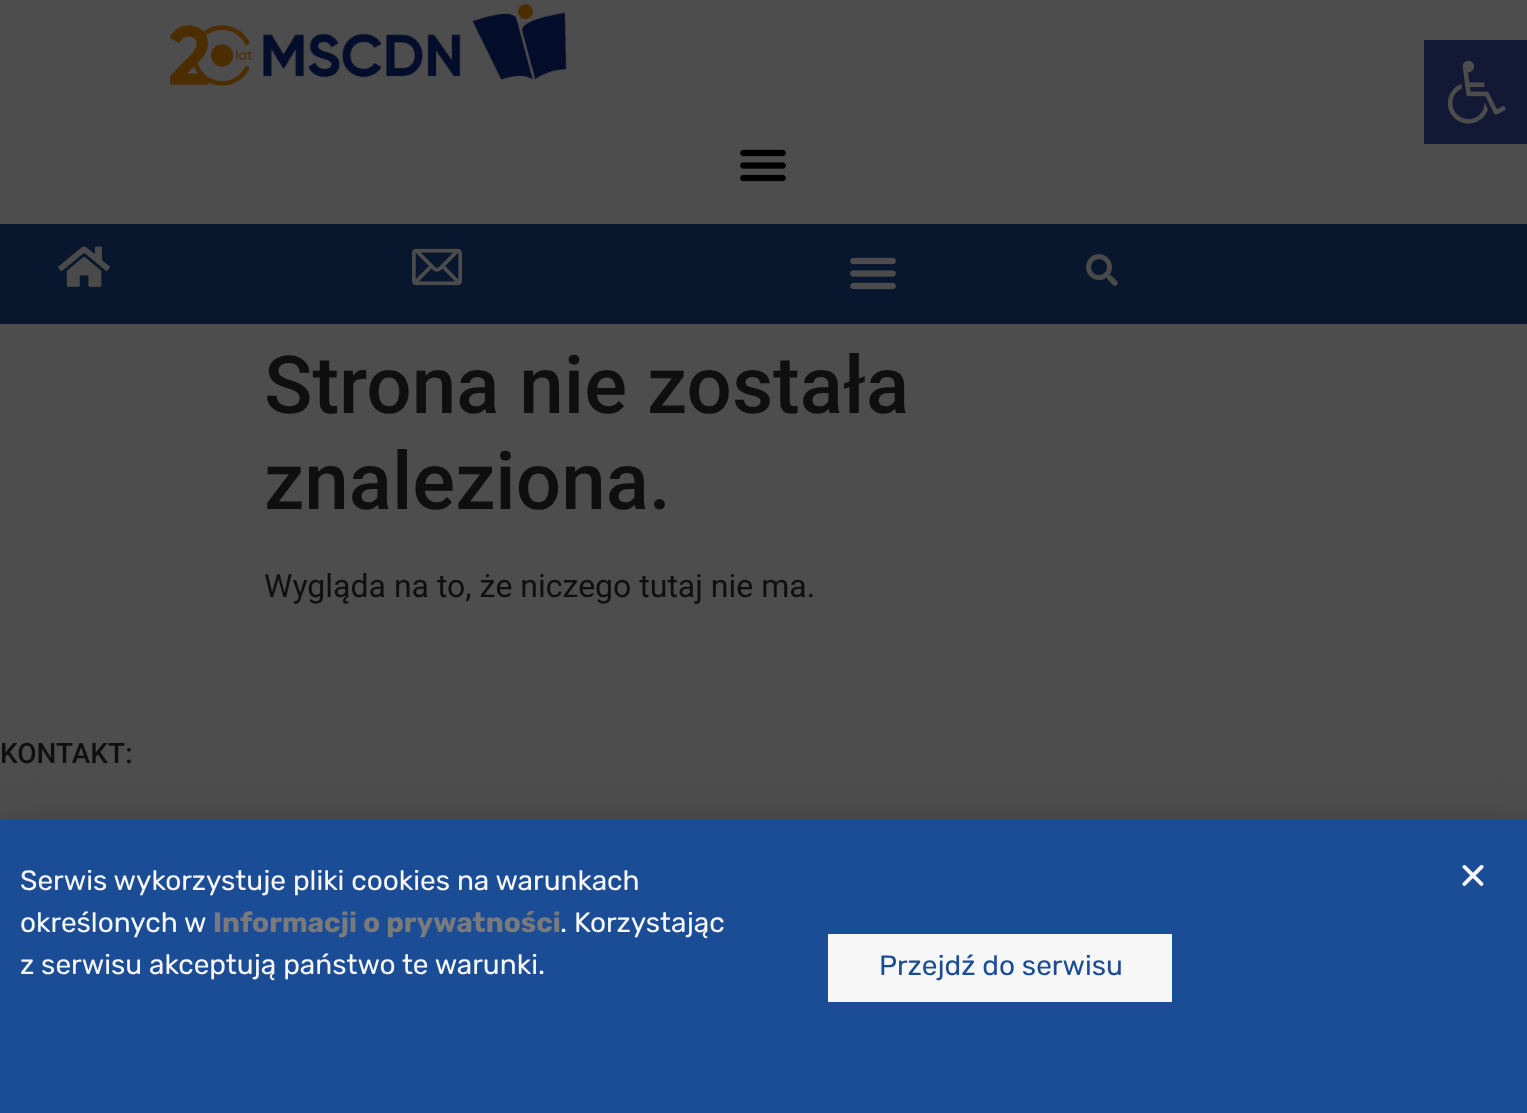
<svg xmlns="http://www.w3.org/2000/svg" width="1527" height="1113">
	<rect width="100%" height="100%" fill="#4D4D4D" />
	<image x="169" y="4" width="398" height="83" href="assets/img1.png" />
	<image x="740" y="149" width="46" height="33" href="assets/img2.png" />
	<rect x="0" y="224" width="1527" height="100" fill="#08172D" />
	<image x="58" y="246" width="52" height="41" href="assets/img3.png" />
	<image x="412" y="248" width="50" height="38" href="assets/img4.png" />
	<image x="850" y="257" width="46" height="33" href="assets/img5.png" />
	<image x="1086" y="254" width="32" height="32" href="assets/img6.png" />
	<rect x="1424" y="40" width="103" height="104" fill="#131935" />
	<image x="1447" y="60" width="59" height="64" href="assets/img7.png" />
	<g font-family="Roboto" font-size="80" font-weight="500" fill="#0F0F0F">
		<text x="264" y="413">Strona nie została</text>
		<text x="264" y="509">znaleziona.</text>
	</g>
	<text x="264" y="597" font-family="Roboto" font-size="32" fill="#0F0F0F">Wygląda na to, że niczego tutaj nie ma.</text>
	<text x="0" y="763" font-family="Roboto" font-size="28" font-weight="500" fill="#0F0F0F">KONTAKT:</text>
	<rect x="-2" y="830" width="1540" height="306" fill="#000000" fill-opacity="0.2" filter="blur(23px)" />
	<rect x="0" y="820" width="1527" height="293" fill="#1B4D97" />
	<g font-family="Rubik" font-size="28" fill="#F7F7F7">
		<text x="20" y="890">Serwis wykorzystuje pliki cookies na warunkach</text>
		<text x="20" y="932">określonych w</text>
	</g>
	<text x="213" y="932" font-family="Rubik" font-size="28" font-weight="700" fill="#7A7A7A">Informacji o prywatności</text>
	<g font-family="Rubik" font-size="28" fill="#F7F7F7">
		<text x="560" y="932">. Korzystając</text>
		<text x="20" y="974">z serwisu akceptują państwo te warunki.</text>
	</g>
	<rect x="828" y="934" width="344" height="68" fill="#F7F7F7" />
	<text x="879" y="975" font-family="Rubik" font-size="28" fill="#1B4D97">Przejdź do serwisu</text>
	<image x="1462" y="864" width="22" height="22" href="assets/img8.png" />
</svg>
